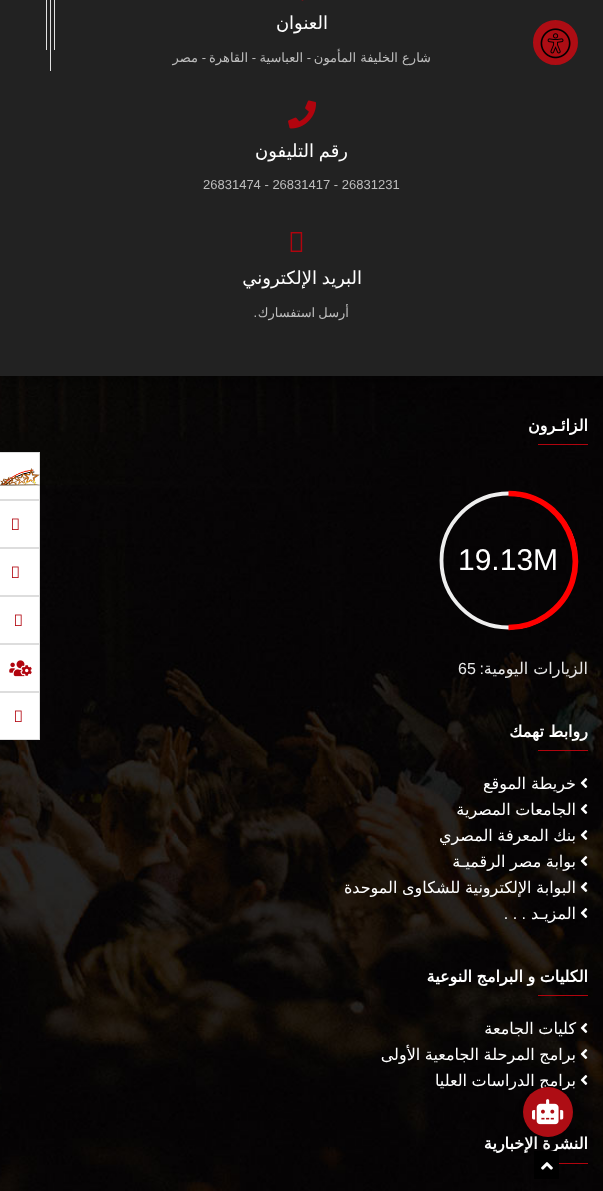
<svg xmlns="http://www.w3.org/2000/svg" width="603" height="1191">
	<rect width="100%" height="100%" fill="#FFFFFF" />
	<image x="0" y="376" width="603" height="815" href="assets/img1.png" />
	<rect x="0" y="-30" width="603" height="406" fill="#000000" fill-opacity="0.7" filter="blur(10px)" />
	<rect x="0" y="0" width="603" height="376" fill="#222222" />
	<rect x="50" y="0" width="1" height="71" fill="#E2E2E2" />
	<image x="301" y="0" width="3" height="1" href="assets/img2.png" />
	<rect x="54" y="0" width="1" height="50" fill="#E2E2E2" />
	<rect x="46" y="0" width="1" height="50" fill="#E2E2E2" />
	<text x="328" y="29" font-family="DejaVu Sans" font-size="18" direction="rtl" fill="#FFFFFF">العنوان</text>
	<text x="431" y="62" font-family="DejaVu Sans" font-size="13" direction="rtl" fill="#BDBDBD">شارع الخليفة المأمون</text>
	<text x="311" y="62" font-family="Liberation Sans" font-size="13" direction="rtl" fill="#BDBDBD">-</text>
	<text x="303" y="62" font-family="DejaVu Sans" font-size="13" direction="rtl" fill="#BDBDBD">العباسية</text>
	<text x="256" y="62" font-family="Liberation Sans" font-size="13" direction="rtl" fill="#BDBDBD">-</text>
	<text x="248" y="62" font-family="DejaVu Sans" font-size="13" direction="rtl" fill="#BDBDBD">القاهرة</text>
	<text x="206" y="62" font-family="Liberation Sans" font-size="13" direction="rtl" fill="#BDBDBD">-</text>
	<text x="198" y="62" font-family="DejaVu Sans" font-size="13" direction="rtl" fill="#BDBDBD">مصر</text>
	<image x="288" y="100" width="29" height="29" href="assets/img3.png" />
	<text x="348" y="157" word-spacing="-1" font-family="DejaVu Sans" font-size="18" direction="rtl" fill="#FFFFFF">رقم التليفون</text>
	<text x="203" y="189" font-family="Liberation Sans" font-size="13" fill="#BDBDBD">26831474 - 26831417 - 26831231</text>
	<image x="290" y="232" width="13" height="20" href="assets/img4.png" />
	<text x="362" y="284" word-spacing="-1" font-family="DejaVu Sans" font-size="18" direction="rtl" fill="#FFFFFF">البريد الإلكتروني</text>
	<text x="349" y="317" word-spacing="-1" font-family="DejaVu Sans" font-size="13" direction="rtl" fill="#BDBDBD">أرسل استفسارك</text>
	<text x="257" y="317" font-family="Liberation Sans" font-size="13" direction="rtl" fill="#BDBDBD">.</text>
	<text x="588" y="431" font-family="DejaVu Sans" font-size="16" font-weight="700" direction="rtl" fill="#FFFFFF">الزائـرون</text>
	<rect x="538" y="444" width="50" height="1" fill="#B1040E" />
	<circle cx="508.5" cy="560.5" r="67" fill="none" stroke="#EEEEEE" stroke-width="3.8" />
	<path d="M508.5 493.5C574 493.5 600.5 579.5 546 616C535 623.5 522 627.5 508.5 627.5" fill="none" stroke="#FF0000" stroke-width="5.7" />
	<text x="458" y="570" font-family="Liberation Sans" font-size="30" fill="#FFFFFF">19.13M</text>
	<text x="588" y="674" font-family="DejaVu Sans" font-size="16" direction="rtl" fill="#E8E8E8">الزيارات اليومية</text>
	<text x="484" y="674" font-family="Liberation Sans" font-size="16" direction="rtl" fill="#E8E8E8">:</text>
	<text x="458" y="674" font-family="Liberation Sans" font-size="16" fill="#E8E8E8">65</text>
	<text x="588" y="737" word-spacing="-0.5" font-family="DejaVu Sans" font-size="16" font-weight="700" direction="rtl" fill="#FFFFFF">روابط تهمك</text>
	<rect x="538" y="750" width="50" height="1" fill="#B1040E" />
	<image x="580" y="778" width="8" height="10" href="assets/img5.png" />
	<text x="576" y="789" font-family="DejaVu Sans" font-size="16" direction="rtl" fill="#FFFFFF">خريطة الموقع</text>
	<image x="580" y="804" width="8" height="10" href="assets/img6.png" />
	<text x="576" y="815" word-spacing="-0.5" font-family="DejaVu Sans" font-size="16" direction="rtl" fill="#FFFFFF">الجامعات المصرية</text>
	<image x="580" y="830" width="8" height="10" href="assets/img7.png" />
	<text x="576" y="841" word-spacing="-0.5" font-family="DejaVu Sans" font-size="16" direction="rtl" fill="#FFFFFF">بنك المعرفة المصري</text>
	<image x="580" y="856" width="8" height="10" href="assets/img8.png" />
	<text x="576" y="867" word-spacing="-0.5" font-family="DejaVu Sans" font-size="16" direction="rtl" fill="#FFFFFF">بوابة مصر الرقميـة</text>
	<image x="580" y="882" width="8" height="10" href="assets/img9.png" />
	<text x="576" y="893" word-spacing="-0.5" font-family="DejaVu Sans" font-size="16" direction="rtl" fill="#FFFFFF">البوابة الإلكترونية للشكاوى الموحدة</text>
	<image x="580" y="908" width="8" height="10" href="assets/img10.png" />
	<text x="576" y="919" font-family="DejaVu Sans" font-size="16" direction="rtl" fill="#FFFFFF">المزيـد</text>
	<text x="526" y="919" font-family="Liberation Sans" font-size="16" direction="rtl" fill="#FFFFFF">. . .</text>
	<text x="588" y="982" word-spacing="-0.5" font-family="DejaVu Sans" font-size="16" font-weight="700" direction="rtl" fill="#FFFFFF">الكليات و البرامج النوعية</text>
	<rect x="538" y="995" width="50" height="1" fill="#B1040E" />
	<image x="580" y="1023" width="8" height="10" href="assets/img11.png" />
	<text x="576" y="1034" word-spacing="-0.5" font-family="DejaVu Sans" font-size="16" direction="rtl" fill="#FFFFFF">كليات الجامعة</text>
	<image x="580" y="1049" width="8" height="10" href="assets/img12.png" />
	<text x="576" y="1060" word-spacing="-0.5" font-family="DejaVu Sans" font-size="16" direction="rtl" fill="#FFFFFF">برامج المرحلة الجامعية الأولى</text>
	<image x="580" y="1075" width="8" height="10" href="assets/img13.png" />
	<text x="576" y="1086" word-spacing="-0.5" font-family="DejaVu Sans" font-size="16" direction="rtl" fill="#FFFFFF">برامج الدراسات العليا</text>
	<text x="588" y="1149" word-spacing="-0.5" font-family="DejaVu Sans" font-size="16" font-weight="700" direction="rtl" fill="#FFFFFF">النشرة الإخبارية</text>
	<rect x="559" y="1163" width="29" height="1" fill="#B1040E" />
	<rect x="-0.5" y="452.5" width="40" height="47" fill="#FFFFFF" stroke="#DDDDDD" />
	<image x="0" y="468" width="40" height="18" href="assets/img14.png" />
	<rect x="-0.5" y="500.5" width="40" height="47" fill="#FFFFFF" stroke="#DDDDDD" />
	<image x="12" y="518" width="7" height="12" href="assets/img15.png" />
	<rect x="-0.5" y="548.5" width="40" height="47" fill="#FFFFFF" stroke="#DDDDDD" />
	<image x="12" y="566" width="7" height="12" href="assets/img15.png" />
	<rect x="-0.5" y="596.5" width="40" height="47" fill="#FFFFFF" stroke="#DDDDDD" />
	<image x="15" y="614" width="7" height="12" href="assets/img15.png" />
	<rect x="-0.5" y="644.5" width="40" height="47" fill="#FFFFFF" stroke="#DDDDDD" />
	<image x="9" y="660" width="23" height="17" href="assets/img16.png" />
	<rect x="-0.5" y="692.5" width="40" height="47" fill="#FFFFFF" stroke="#DDDDDD" />
	<image x="15" y="710" width="7" height="12" href="assets/img15.png" />
	<rect x="534" y="1151" width="25" height="28" fill="#000000" />
	<image x="541" y="1162" width="12" height="8" href="assets/img18.png" />
	<rect x="526" y="1100" width="44" height="44" rx="22" fill="#000000" fill-opacity="0.1" filter="blur(7.5px)" />
	<circle cx="548" cy="1112" r="25" fill="#AE0D14" />
	<image x="532" y="1099" width="32" height="26" href="assets/img17.png" />
	<circle cx="555.5" cy="42.5" r="20.5" fill="#AE0D14" stroke="#AE0D14" stroke-width="4" />
	<image x="540" y="28" width="31" height="31" href="assets/img19.png" />
</svg>
